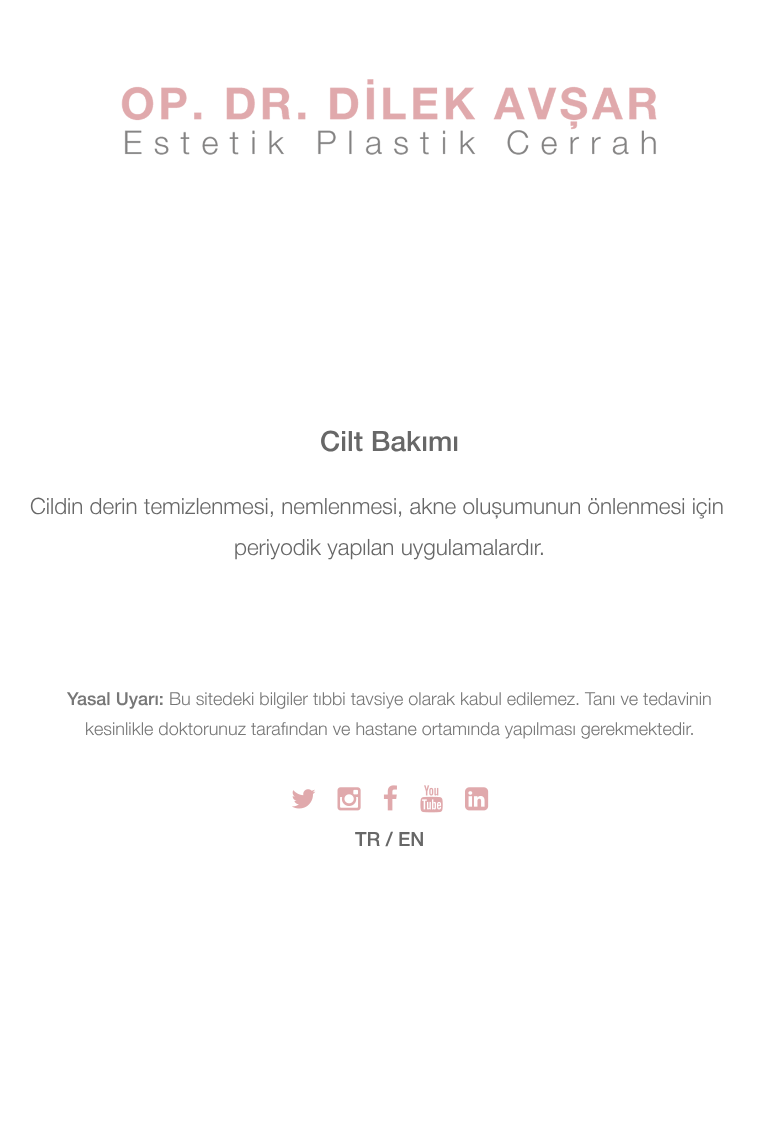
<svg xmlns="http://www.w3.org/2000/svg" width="778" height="1128">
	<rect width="100%" height="100%" fill="#FFFFFF" />
	<image x="121" y="79" width="536" height="76" href="assets/img1.png" />
	<text x="320" y="451" font-family="Helvetica Neue" font-size="28" font-weight="500" fill="#676767">Cilt Bakımı</text>
	<g font-family="Helvetica Neue" font-size="22.5" font-weight="300" fill="#676767">
		<text x="30" y="514">Cildin derin temizlenmesi, nemlenmesi, akne oluşumunun önlenmesi için</text>
		<text x="234" y="555">periyodik yapılan uygulamalardır.</text>
	</g>
	<text x="67" y="705" font-family="Helvetica Neue" font-size="18" font-weight="500" fill="#777777">Yasal Uyarı:</text>
	<g font-family="Helvetica Neue" font-size="18" font-weight="300" fill="#777777">
		<text x="169" y="705">Bu sitedeki bilgiler tıbbi tavsiye olarak kabul edilemez. Tanı ve tedavinin</text>
		<text x="85" y="735">kesinlikle doktorunuz tarafından ve hastane ortamında yapılması gerekmektedir.</text>
	</g>
	<image x="292" y="789" width="24" height="20" href="assets/img2.png" />
	<image x="337" y="787" width="24" height="24" href="assets/img3.png" />
	<image x="383" y="785" width="14" height="26" href="assets/img4.png" />
	<image x="420" y="785" width="23" height="28" href="assets/img5.png" />
	<image x="465" y="787" width="24" height="24" href="assets/img6.png" />
	<text x="355" y="846" font-family="Helvetica Neue" font-size="19.5" font-weight="500" fill="#676767">TR / EN</text>
</svg>
